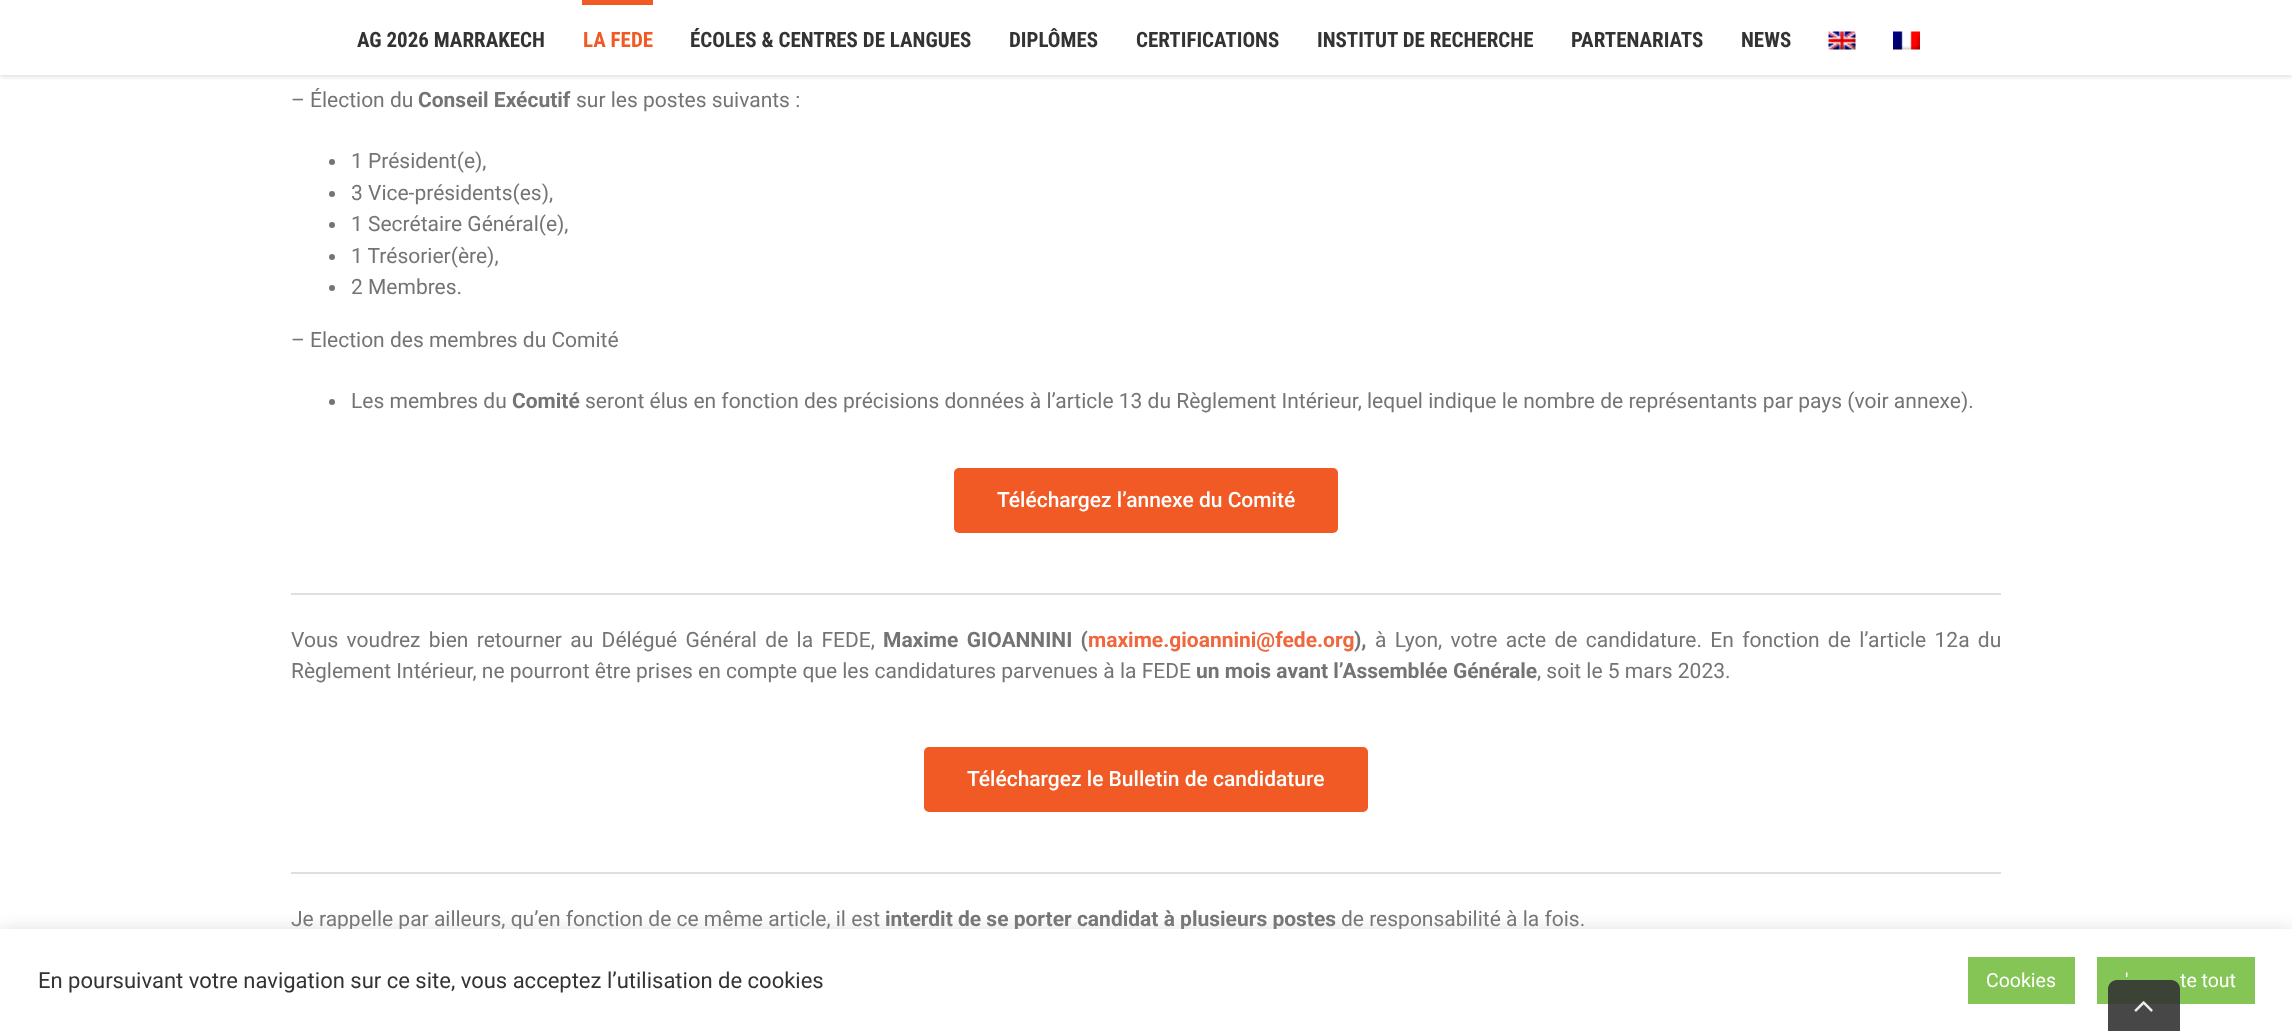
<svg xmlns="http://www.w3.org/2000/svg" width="2292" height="1031">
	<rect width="100%" height="100%" fill="#FFFFFF" />
	<rect x="0" y="2" width="2292" height="75" fill="#000000" fill-opacity="0.12" filter="blur(2px)" />
	<rect x="0" y="0" width="2292" height="75" fill="#FFFFFF" />
	<text x="357" y="47" font-family="Roboto Condensed" font-size="21" font-weight="700" fill="#333333">AG 2026 MARRAKECH</text>
	<rect x="582" y="0" width="71" height="5" fill="#F15A24" />
	<text x="583" y="47" font-family="Roboto Condensed" font-size="21" font-weight="700" fill="#F15A24">LA FEDE</text>
	<g font-family="Roboto Condensed" font-size="21" font-weight="700" fill="#333333">
		<text x="690" y="47">ÉCOLES &amp; CENTRES DE LANGUES</text>
		<text x="1009" y="47">DIPLÔMES</text>
		<text x="1136" y="47">CERTIFICATIONS</text>
		<text x="1317" y="47">INSTITUT DE RECHERCHE</text>
		<text x="1571" y="47">PARTENARIATS</text>
		<text x="1741" y="47">NEWS</text>
	</g>
	<image x="1828" y="31" width="28" height="19" href="assets/img1.png" />
	<image x="1893" y="31" width="27" height="19" href="assets/img2.png" />
	<text x="291" y="107" font-family="Roboto" font-size="21" fill="#747474">– Élection du</text>
	<text x="418" y="107" font-family="Roboto" font-size="21" font-weight="700" fill="#747474">Conseil Exécutif</text>
	<text x="576" y="107" font-family="Roboto" font-size="21" fill="#747474">sur les postes suivants :</text>
	<circle cx="332" cy="162" r="3" fill="#747474" />
	<text x="351" y="168" font-family="Roboto" font-size="21" fill="#747474">1 Président(e),</text>
	<circle cx="332" cy="194" r="3" fill="#747474" />
	<text x="351" y="200" font-family="Roboto" font-size="21" fill="#747474">3 Vice-présidents(es),</text>
	<circle cx="332" cy="225" r="3" fill="#747474" />
	<text x="351" y="231" font-family="Roboto" font-size="21" fill="#747474">1 Secrétaire Général(e),</text>
	<circle cx="332" cy="257" r="3" fill="#747474" />
	<text x="351" y="263" font-family="Roboto" font-size="21" fill="#747474">1 Trésorier(ère),</text>
	<circle cx="332" cy="288" r="3" fill="#747474" />
	<g font-family="Roboto" font-size="21" fill="#747474">
		<text x="351" y="294">2 Membres.</text>
		<text x="291" y="347">– Election des membres du Comité</text>
	</g>
	<circle cx="332" cy="402" r="3" fill="#747474" />
	<text x="351" y="408" font-family="Roboto" font-size="21" fill="#747474">Les membres du</text>
	<text x="512" y="408" font-family="Roboto" font-size="21" font-weight="700" fill="#747474">Comité</text>
	<text x="585" y="408" font-family="Roboto" font-size="21" fill="#747474">seront élus en fonction des précisions données à l’article 13 du Règlement Intérieur, lequel indique le nombre de représentants par pays (voir annexe).</text>
	<rect x="954" y="468" width="384" height="65" rx="5" fill="#F15A24" />
	<text x="997" y="507" font-family="Roboto" font-size="21" font-weight="500" fill="#FFFFFF">Téléchargez l’annexe du Comité</text>
	<rect x="291" y="593" width="1710" height="2" fill="#E0DEDE" />
	<text x="291" y="647" word-spacing="3.1" font-family="Roboto" font-size="21" fill="#747474">Vous voudrez bien retourner au Délégué Général de la FEDE,</text>
	<text x="883" y="647" word-spacing="3.1" font-family="Roboto" font-size="21" font-weight="700" fill="#747474">Maxime GIOANNINI (</text>
	<text x="1088" y="647" font-family="Roboto" font-size="21" font-weight="700" fill="#F0663D">maxime.gioannini@fede.org</text>
	<text x="1354" y="647" font-family="Roboto" font-size="21" font-weight="700" fill="#747474">),</text>
	<g font-family="Roboto" font-size="21" fill="#747474">
		<text x="1375" y="647" word-spacing="3.1">à Lyon, votre acte de candidature. En fonction de l’article 12a du</text>
		<text x="291" y="678">Règlement Intérieur, ne pourront être prises en compte que les candidatures parvenues à la FEDE</text>
	</g>
	<text x="1196" y="678" font-family="Roboto" font-size="21" font-weight="700" fill="#747474">un mois avant l’Assemblée Générale</text>
	<text x="1537" y="678" font-family="Roboto" font-size="21" fill="#747474">, soit le 5 mars 2023.</text>
	<rect x="924" y="747" width="444" height="65" rx="5" fill="#F15A24" />
	<text x="967" y="786" font-family="Roboto" font-size="21" font-weight="500" fill="#FFFFFF">Téléchargez le Bulletin de candidature</text>
	<rect x="291" y="872" width="1710" height="2" fill="#E0DEDE" />
	<text x="291" y="926" font-family="Roboto" font-size="21" fill="#747474">Je rappelle par ailleurs, qu’en fonction de ce même article, il est</text>
	<text x="885" y="926" font-family="Roboto" font-size="21" font-weight="700" fill="#747474">interdit de se porter candidat à plusieurs postes</text>
	<text x="1341" y="926" font-family="Roboto" font-size="21" fill="#747474">de responsabilité à la fois.</text>
	<rect x="0" y="927" width="2292" height="104" fill="#ACABAB" fill-opacity="0.3" filter="blur(7.5px)" />
	<rect x="0" y="929" width="2292" height="102" fill="#FFFFFF" />
	<text x="38" y="988" font-family="Roboto" font-size="22" fill="#333333">En poursuivant votre navigation sur ce site, vous acceptez l’utilisation de cookies</text>
	<rect x="1968" y="957" width="107" height="47" fill="#85C556" />
	<text x="1986" y="987" font-family="Roboto" font-size="19.5" fill="#FFFFFF">Cookies</text>
	<rect x="2097" y="957" width="158" height="47" fill="#85C556" />
	<g font-family="Roboto" font-size="19.5" fill="#FFFFFF">
		<text x="2125" y="987">'</text>
		<text x="2180" y="987">te tout</text>
	</g>
	<path d="M2117 980H2171C2176 980 2180 984 2180 989V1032H2108V989C2108 984 2112 980 2117 980Z" fill="#333333" fill-opacity="0.9" />
	<image x="2134" y="1001" width="19" height="11" href="assets/img3.png" />
</svg>
